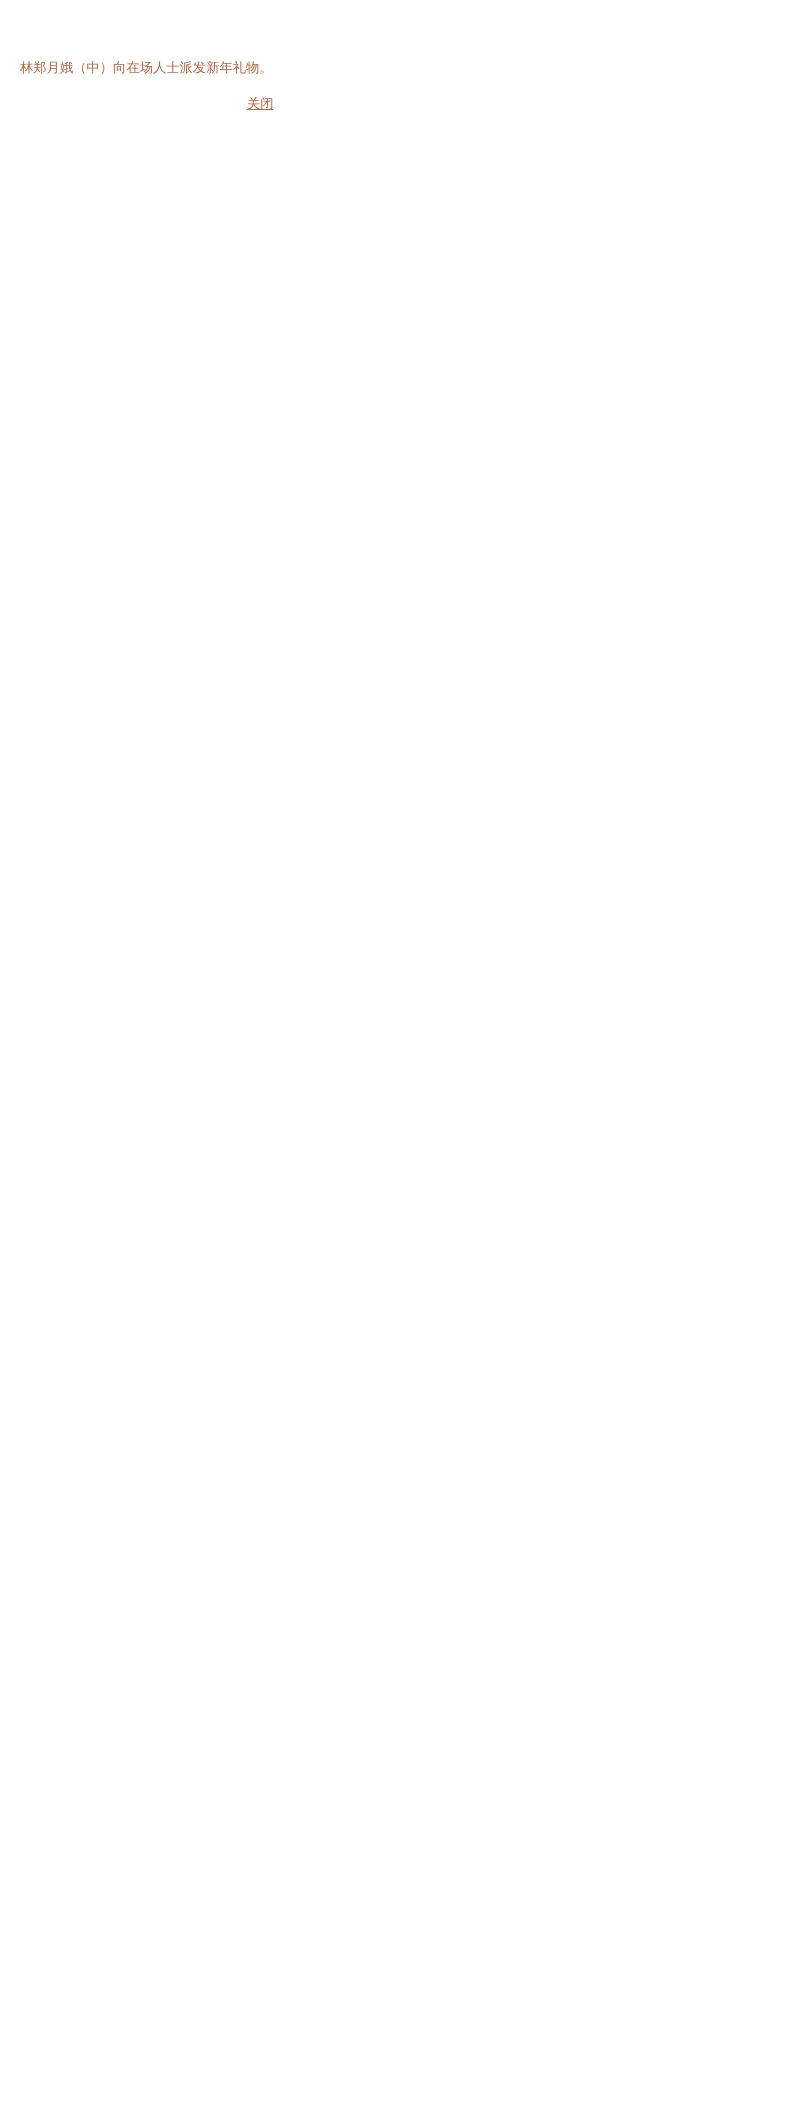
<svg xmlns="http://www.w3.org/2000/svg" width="806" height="2110">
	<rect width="100%" height="100%" fill="#FFFFFF" />
	<text x="20" y="72" font-family="WenQuanYi Zen Hei" font-size="13.3" font-weight="500" fill="#AD6848">林郑月娥（中）向在场人士派发新年礼物。</text>
	<rect x="247" y="109" width="26" height="1" fill="#AD6848" />
	<text x="247" y="108" font-family="WenQuanYi Zen Hei" font-size="13.3" font-weight="500" fill="#AD6848">关闭</text>
</svg>
